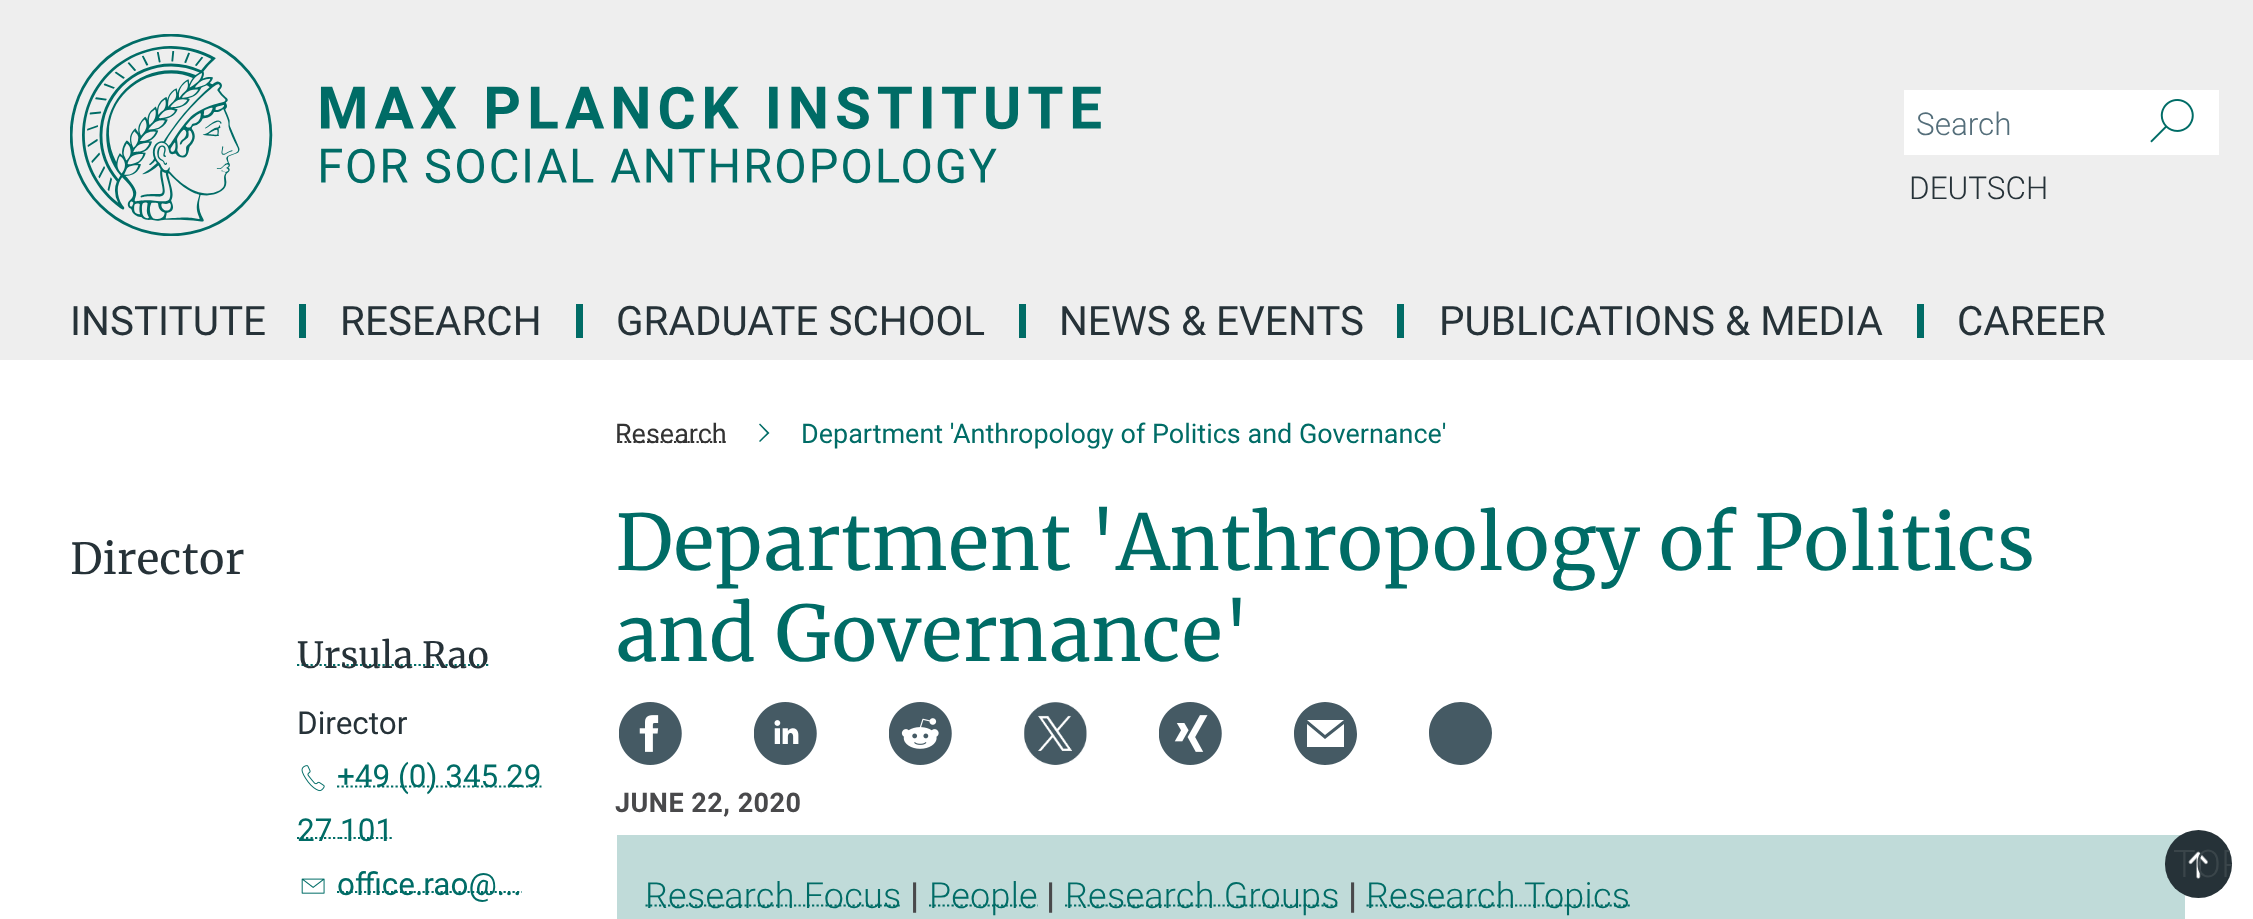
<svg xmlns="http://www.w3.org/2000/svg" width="2253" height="919">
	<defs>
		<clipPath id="clip1"><rect x="617" y="365" width="1568" height="132" /></clipPath>
		<clipPath id="clip2"><rect x="2165" y="830" width="67" height="68" rx="33.5" /></clipPath>
	</defs>
	<rect width="100%" height="100%" fill="#FFFFFF" />
	<rect x="0" y="0" width="2253" height="360" fill="#EEEEEE" />
	<image x="70" y="34" width="1031" height="202" href="assets/img1.png" />
	<rect x="1904" y="90" width="315" height="65" fill="#FFFFFF" />
	<text x="1916" y="135" font-family="Roboto" font-size="31.5" font-weight="300" fill="#546E7A">Search</text>
	<image x="2150" y="99" width="44" height="44" href="assets/img2.png" />
	<text x="1909" y="199" font-family="Roboto" font-size="31.5" font-weight="300" fill="#263238">DEUTSCH</text>
	<rect x="299" y="304" width="7" height="34" fill="#006C66" />
	<text x="70" y="335" font-family="Roboto" font-size="40.5" fill="#263238">INSTITUTE</text>
	<rect x="576" y="304" width="7" height="34" fill="#006C66" />
	<text x="340" y="335" font-family="Roboto" font-size="40.5" fill="#263238">RESEARCH</text>
	<rect x="1019" y="304" width="7" height="34" fill="#006C66" />
	<text x="616" y="335" font-family="Roboto" font-size="40.5" fill="#263238">GRADUATE SCHOOL</text>
	<rect x="1397" y="304" width="7" height="34" fill="#006C66" />
	<text x="1059" y="335" font-family="Roboto" font-size="40.5" fill="#263238">NEWS &amp; EVENTS</text>
	<rect x="1917" y="304" width="7" height="34" fill="#006C66" />
	<g font-family="Roboto" font-size="40.5" fill="#263238">
		<text x="1439" y="335">PUBLICATIONS &amp; MEDIA</text>
		<text x="1957" y="335">CAREER</text>
	</g>
	<text x="70" y="574" font-family="Merriweather" font-size="42.75" fill="#263238">Director</text>
	<path d="M297 665H489.5" fill="none" stroke="#006C66" stroke-width="2.2" stroke-dasharray="2.25 2.25" />
	<text x="297" y="668" font-family="Merriweather" font-size="36" fill="#263238">Ursula Rao</text>
	<text x="297" y="734" font-family="Roboto" font-size="31.5" fill="#263238">Director</text>
	<image x="301" y="765" width="24" height="27" href="assets/img3.png" />
	<path d="M337 786.5H541.5" fill="none" stroke="#006C66" stroke-width="2.2" stroke-dasharray="2.25 2.25" />
	<text x="337" y="787" font-family="Roboto" font-size="31.5" fill="#006C66">+49 (0) 345 29</text>
	<path d="M297 838H340.5" fill="none" stroke="#006C66" stroke-width="2.2" stroke-dasharray="2.25 2.25" />
	<text x="297" y="841" font-family="Roboto" font-size="31.5" fill="#006C66">27</text>
	<path d="M340 838H393.5" fill="none" stroke="#006C66" stroke-width="2.2" stroke-dasharray="2.25 2.25" />
	<text x="340" y="841" font-family="Roboto" font-size="31.5" fill="#006C66">101</text>
	<image x="301" y="878" width="24" height="16" href="assets/img4.png" />
	<path d="M337 892H522" fill="none" stroke="#006C66" stroke-width="2.2" stroke-dasharray="2.25 2.25" />
	<text x="337" y="895" font-family="Roboto" font-size="31.5" fill="#006C66">office.rao@...</text>
	<g clip-path="url(#clip1)">
		<path d="M615.5 442H727" fill="none" stroke="#333333" stroke-width="2.2" stroke-dasharray="2.25 2.25" />
	</g>
	<text x="615" y="443" font-family="Roboto" font-size="27" fill="#333333">Research</text>
	<path d="M759 441L767 433L759 424.5L760 423.5L769.5 433L760 442Z" fill="#006C66" />
	<text x="801" y="443" font-family="Roboto" font-size="27" fill="#006C66">Department 'Anthropology of Politics and Governance'</text>
	<g font-family="Merriweather" font-size="76.5" fill="#006C66">
		<text x="615" y="570">Department 'Anthropology of Politics</text>
		<text x="615" y="661">and Governance'</text>
	</g>
	<image x="619" y="702" width="63" height="63" href="assets/img5.png" />
	<image x="754" y="702" width="63" height="63" href="assets/img6.png" />
	<image x="889" y="702" width="63" height="63" href="assets/img7.png" />
	<image x="1024" y="702" width="63" height="63" href="assets/img8.png" />
	<image x="1159" y="702" width="63" height="63" href="assets/img9.png" />
	<path d="M1325 702C1308 702 1294 716 1294 734C1294 751 1308 765 1325 765C1343 765 1357 751 1357 734C1357 716 1343 702 1325 702ZM1344 720L1325 735L1307 720ZM1344 747H1307V724L1325 739L1344 724Z" fill="#455A64" />
	<path d="M1492 733C1492 740 1490 746 1486 751C1469 777 1429 764 1429 733C1429 703 1469 690 1486 716C1490 721 1492 727 1492 733Z" fill="#455A64" />
	<text x="615" y="812" font-family="Roboto" font-size="27" font-weight="700" letter-spacing="0.5" fill="#49494B">JUNE 22, 2020</text>
	<rect x="617" y="835" width="1568" height="84" fill="#C0DBD9" />
	<path d="M645.5 905.5H901.5" fill="none" stroke="#006C66" stroke-width="2.2" stroke-dasharray="2.25 2.25" />
	<text x="645" y="908" font-family="Roboto" font-size="36" font-weight="300" letter-spacing="0.25" fill="#006C66">Research Focus</text>
	<text x="910" y="908" font-family="Roboto" font-size="36" font-weight="700" letter-spacing="0.25" fill="#49494B">|</text>
	<path d="M929 905.5H1037.5" fill="none" stroke="#006C66" stroke-width="2.2" stroke-dasharray="2.25 2.25" />
	<text x="929" y="908" font-family="Roboto" font-size="36" font-weight="300" letter-spacing="0.25" fill="#006C66">People</text>
	<text x="1046" y="908" font-family="Roboto" font-size="36" font-weight="700" letter-spacing="0.25" fill="#49494B">|</text>
	<path d="M1065 905.5H1339" fill="none" stroke="#006C66" stroke-width="2.2" stroke-dasharray="2.25 2.25" />
	<text x="1065" y="908" font-family="Roboto" font-size="36" font-weight="300" letter-spacing="0.25" fill="#006C66">Research Groups</text>
	<text x="1348" y="908" font-family="Roboto" font-size="36" font-weight="700" letter-spacing="0.25" fill="#49494B">|</text>
	<path d="M1366.5 905.5H1630" fill="none" stroke="#006C66" stroke-width="2.2" stroke-dasharray="2.25 2.25" />
	<text x="1366" y="908" font-family="Roboto" font-size="36" font-weight="300" letter-spacing="0.25" fill="#006C66">Research Topics</text>
	<rect x="2165" y="830" width="67" height="68" rx="33.5" fill="#263238" />
	<image x="2188" y="851" width="20" height="28" href="assets/img10.png" />
	<g clip-path="url(#clip2)">
		<text x="2173" y="877" font-family="Roboto" font-size="38" font-weight="300" fill="#3A454A">TOP</text>
	</g>
</svg>
